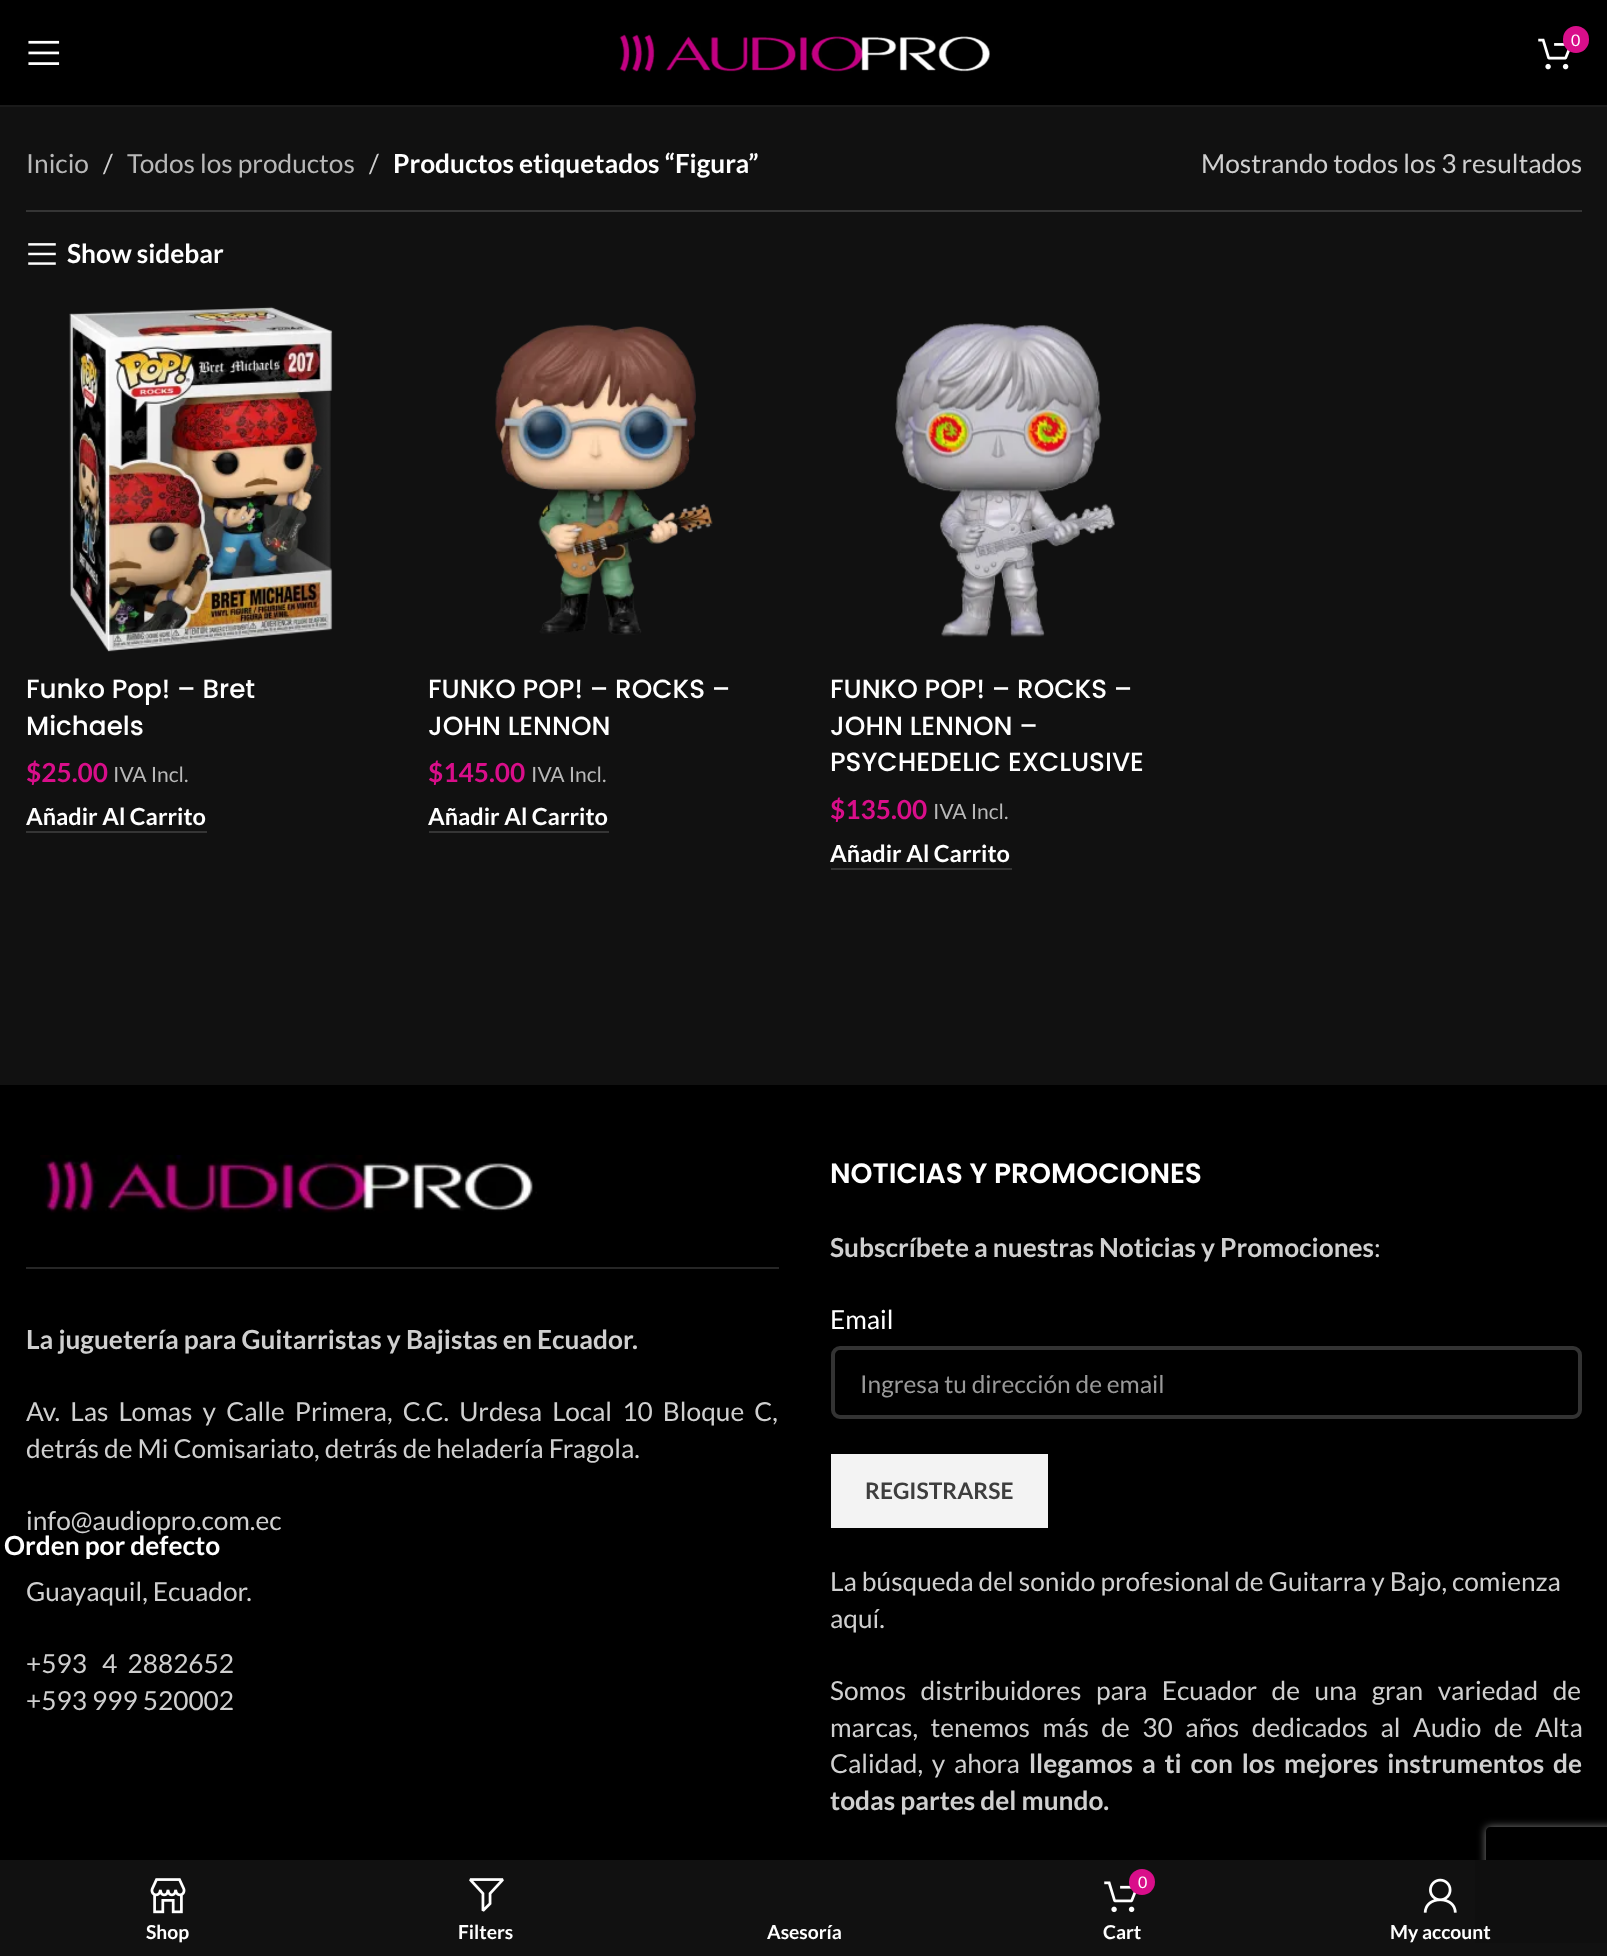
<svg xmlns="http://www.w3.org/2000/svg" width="1607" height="1956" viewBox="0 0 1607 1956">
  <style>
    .t1 { font: 16px Lato; fill: #fff; }
    .t2 { font: 26.25px Lato; fill: #b8b8b8; }
    .t3 { font: 26.25px Lato; fill: #cfcfcf; }
    .t4 { font: bold 26.25px Lato; fill: #fff; }
    .t5 { font: 500 26.25px Poppins; fill: #fff; }
    .t6 { font: bold 26.25px Lato; fill: #d90e8a; }
    .t7 { font: 21px Lato; fill: #b8b8b8; }
    .t8 { font: bold 23.5px Lato; fill: #fff; }
    .t9 { font: bold 26.25px Lato; fill: #cfcfcf; }
    .t10 { font: 600 28px Poppins; fill: #fff; }
    .t11 { font: 26.25px Lato; fill: #fff; }
    .t12 { font: 24.5px Lato; fill: #999; }
    .t13 { font: bold 22.75px Lato; fill: #3e3e3e; }
    .t14 { font: bold 19.25px Lato; fill: #fff; }
  </style>
  <defs>
    <clipPath id="clip1"><rect x="4" y="1528" width="311" height="31"/></clipPath>
    <clipPath id="clip2"><path d="M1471 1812H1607V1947H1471ZM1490 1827H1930C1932 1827 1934 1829 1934 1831V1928C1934 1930 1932 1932 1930 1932H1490C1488 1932 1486 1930 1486 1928V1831C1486 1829 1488 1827 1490 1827Z" clip-rule="evenodd"/></clipPath>
  </defs>
  <rect width="100%" height="100%" fill="#111"/>
  <rect x="0" y="0" width="1607" height="105" fill="#000"/>
  <rect x="0" y="105" width="1607" height="2" fill="#1a1a1a"/>
  <image x="28" y="40" width="32" height="25" href="images/1.png"/>
  <image x="619" y="34" width="371" height="38" href="images/2.png"/>
  <image x="1538" y="38" width="32" height="32" href="images/3.png"/>
  <rect x="1563" y="26" width="26" height="27" rx="13" fill="#d90e8a"/>
  <text x="1571" y="46" class="t1">0</text>
  <rect x="26" y="210" width="1556" height="2" fill="#353535"/>
  <text x="26" y="173" class="t2">Inicio</text>
  <text x="103" y="173" class="t3">/</text>
  <text x="127" y="173" class="t2">Todos los productos</text>
  <text x="369" y="173" class="t3">/</text>
  <text x="393" y="173" class="t4">Productos etiquetados “Figura”</text>
  <text x="1201" y="173" class="t3">Mostrando todos los 3 resultados</text>
  <image x="28" y="243" width="28" height="22" href="images/4.png"/>
  <text x="67" y="263" class="t4">Show sidebar</text>
  <rect x="0" y="1085" width="1607" height="775" fill="#000"/>
  <g clip-path="url(#clip1)">
    <text x="4" y="1555" class="t4">Orden por defecto</text>
  </g>
  <image x="69" y="306" width="264" height="346" href="images/5.png"/>
  <text x="26" y="698" class="t5">Funko Pop! – Bret</text>
  <text x="26" y="735" class="t5">Michaels</text>
  <text x="26" y="782" class="t6">$25.00</text>
  <text x="113" y="782" class="t7">IVA Incl.</text>
  <rect x="26" y="831" width="181" height="2" fill="#353535"/>
  <text x="26" y="825" class="t8">Añadir Al Carrito</text>
  <image x="495" y="324" width="218" height="311" href="images/6.png"/>
  <text x="428" y="698" class="t5">FUNKO POP! – ROCKS –</text>
  <text x="428" y="735" class="t5">JOHN LENNON</text>
  <text x="428" y="782" class="t6">$145.00</text>
  <text x="531" y="782" class="t7">IVA Incl.</text>
  <rect x="429" y="831" width="180" height="2" fill="#353535"/>
  <text x="428" y="825" class="t8">Añadir Al Carrito</text>
  <image x="895" y="323" width="220" height="314" href="images/7.png"/>
  <text x="830" y="698" class="t5">FUNKO POP! – ROCKS –</text>
  <text x="830" y="735" class="t5">JOHN LENNON –</text>
  <text x="830" y="771" class="t5">PSYCHEDELIC EXCLUSIVE</text>
  <text x="830" y="819" class="t6">$135.00</text>
  <text x="933" y="819" class="t7">IVA Incl.</text>
  <rect x="831" y="868" width="181" height="2" fill="#353535"/>
  <text x="830" y="862" class="t8">Añadir Al Carrito</text>
  <rect x="26" y="1267" width="753" height="2" fill="#262626"/>
  <image x="40" y="1155" width="497" height="58" href="images/8.png"/>
  <text x="26" y="1349" class="t9">La juguetería para Guitarristas y Bajistas en Ecuador.</text>
  <text x="26" y="1421" word-spacing="5.1" class="t3">Av. Las Lomas y Calle Primera, C.C. Urdesa Local 10 Bloque C,</text>
  <text x="26" y="1458" class="t3">detrás de Mi Comisariato, detrás de heladería Fragola.</text>
  <text x="26" y="1530" class="t3">info@audiopro.com.ec</text>
  <text x="26" y="1601" class="t3">Guayaquil, Ecuador.</text>
  <text x="26" y="1673" class="t3" xml:space="preserve">+593   4  2882652</text>
  <text x="26" y="1710" class="t3">+593 999 520002</text>
  <text x="830" y="1183" class="t10">NOTICIAS Y PROMOCIONES</text>
  <text x="830" y="1257" class="t9">Subscríbete a nuestras Noticias y Promociones</text>
  <text x="1374" y="1257" class="t3">:</text>
  <text x="830" y="1329" class="t11">Email</text>
  <rect x="833" y="1348" width="747" height="69" rx="7" fill="none" stroke="#333" stroke-width="4"/>
  <text x="860" y="1393" class="t12">Ingresa tu dirección de email</text>
  <rect x="831" y="1454" width="217" height="74" fill="#f3f3f3"/>
  <text x="865" y="1499" class="t13">REGISTRARSE</text>
  <text x="830" y="1591" class="t3">La búsqueda del sonido profesional de Guitarra y Bajo, comienza</text>
  <text x="830" y="1628" class="t3">aquí.</text>
  <text x="830" y="1700" word-spacing="9.5" class="t3">Somos distribuidores para Ecuador de una gran variedad de</text>
  <text x="830" y="1737" word-spacing="7.5" class="t3">marcas, tenemos más de 30 años dedicados al Audio de Alta</text>
  <text x="830" y="1773" word-spacing="3.75" class="t3">Calidad, y ahora</text>
  <text x="1029" y="1773" word-spacing="3.75" class="t9">llegamos a ti con los mejores instrumentos de</text>
  <text x="830" y="1810" class="t9">todas partes del mundo.</text>
  <g clip-path="url(#clip2)">
    <rect x="1486" y="1827" width="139" height="105" rx="4" fill="#808080" filter="blur(4.5px)"/>
  </g>
  <rect x="1475" y="1860" width="132" height="83" fill="#0f0f0f"/>
  <image x="150" y="1878" width="36" height="36" href="images/9.png"/>
  <text x="146" y="1939" class="t14">Shop</text>
  <image x="469" y="1878" width="35" height="34" href="images/10.png"/>
  <text x="458" y="1939" class="t14">Filters</text>
  <text x="767" y="1939" class="t14">Asesoría</text>
  <image x="1104" y="1881" width="33" height="32" href="images/11.png"/>
  <circle cx="1142" cy="1882" r="13" fill="#d90e8a"/>
  <text x="1138" y="1888" class="t1">0</text>
  <text x="1103" y="1939" class="t14">Cart</text>
  <image x="1423" y="1878" width="34" height="35" href="images/12.png"/>
  <text x="1390" y="1939" class="t14">My account</text>
</svg>
